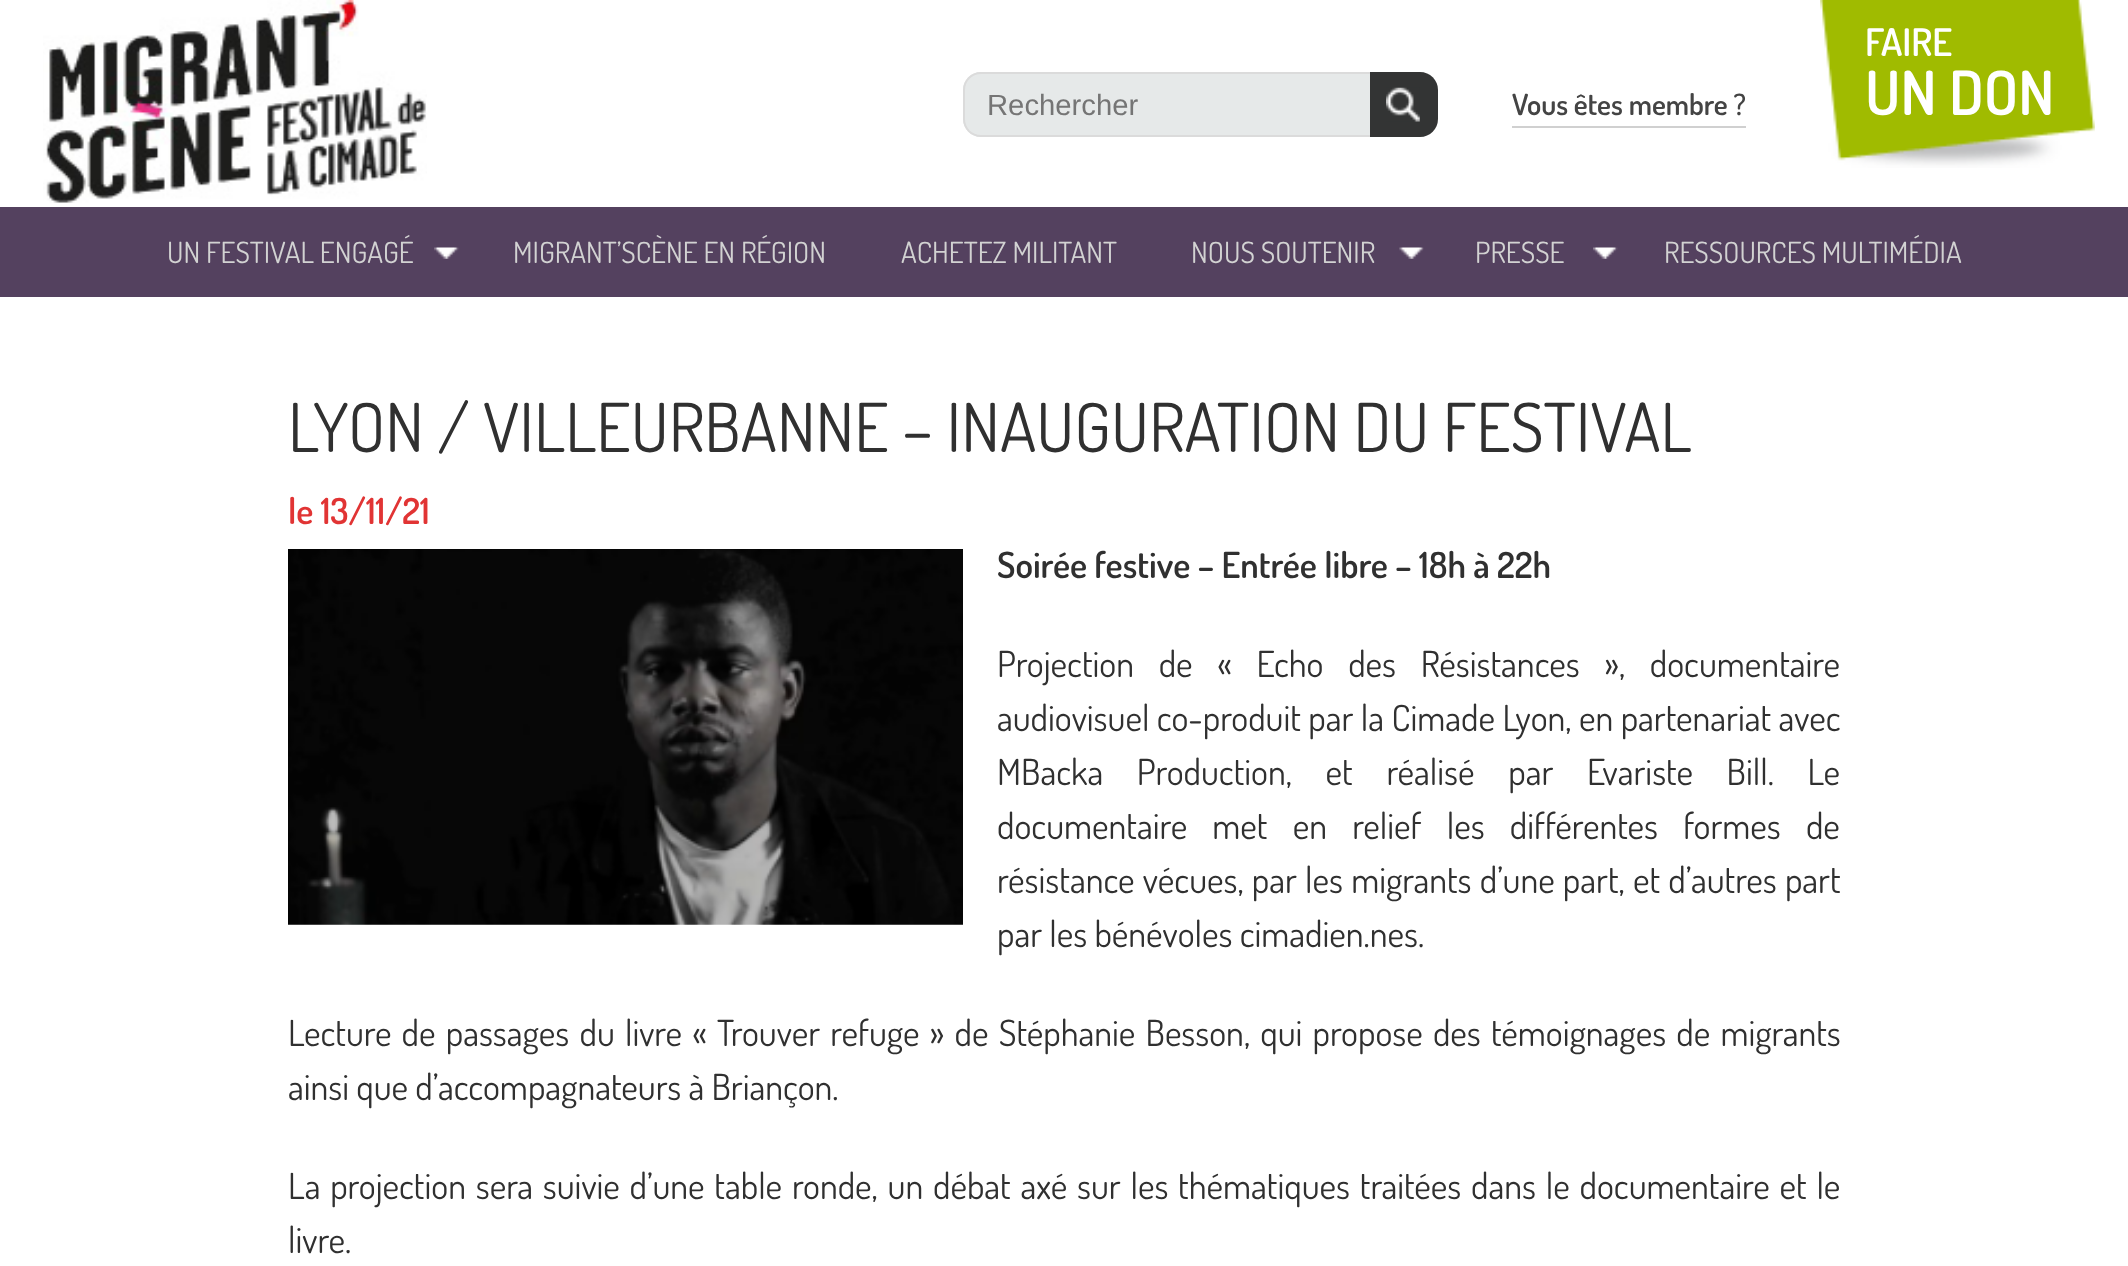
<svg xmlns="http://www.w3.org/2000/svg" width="2128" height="1266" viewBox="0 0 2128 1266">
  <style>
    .t1 { font: 29.25px Liberation Sans; fill: #757575; }
    .t2 { font: 600 29.25px Dosis; fill: #444; }
    .t3 { font: 600 38px Dosis; fill: #fff; }
    .t4 { font: 600 61px Dosis; fill: #fff; }
    .t5 { font: 29.25px Dosis; fill: #d2d2d2; }
    .t6 { font: 67.5px Dosis; fill: #303030; }
    .t7 { font: 600 36px Dosis; fill: #e13434; }
    .t8 { font: 600 36px Dosis; fill: #303030; }
    .t9 { font: 36px Dosis; fill: #303030; }
  </style>
  <rect width="100%" height="100%" fill="#fff"/>
  <image x="43" y="0" width="384" height="203" href="images/1.png"/>
  <path d="M981 72H1370V137H981C971 137 963 129 963 119V90C963 80 971 72 981 72Z" fill="#e6e9e9"/>
  <path d="M981 72H1370V137H981C971 137 963 129 963 119V90C963 80 971 72 981 72ZM981 74H1370V135H981C972 135 965 128 965 119V90C965 81 972 74 981 74Z" fill="#dbdbdb" fill-rule="evenodd"/>
  <text x="987" y="115" class="t1">Rechercher</text>
  <path d="M1370 72H1420C1430 72 1438 80 1438 90V119C1438 129 1430 137 1420 137H1370Z" fill="#333434"/>
  <image x="1386" y="87" width="34" height="35" href="images/2.png"/>
  <rect x="1512" y="126" width="234" height="2" fill="#d0d0d0"/>
  <text x="1512" y="115" class="t2">Vous êtes membre ?</text>
  <image x="1820" y="0" width="275" height="168" href="images/3.png"/>
  <text x="1865" y="56" class="t3">FAIRE</text>
  <text x="1865" y="115" class="t4">UN DON</text>
  <rect x="0" y="207" width="2128" height="90" fill="#54415f"/>
  <image x="434" y="247" width="25" height="12" href="images/4.png"/>
  <text x="167" y="263" class="t5">UN FESTIVAL ENGAGÉ</text>
  <text x="513" y="263" class="t5">MIGRANT’SCÈNE EN RÉGION</text>
  <text x="901" y="263" class="t5">ACHETEZ MILITANT</text>
  <image x="1399" y="247" width="25" height="12" href="images/5.png"/>
  <text x="1191" y="263" class="t5">NOUS SOUTENIR</text>
  <image x="1593" y="247" width="25" height="12" href="images/6.png"/>
  <text x="1475" y="263" class="t5">PRESSE</text>
  <text x="1664" y="263" class="t5">RESSOURCES MULTIMÉDIA</text>
  <text x="288" y="452" class="t6">LYON / VILLEURBANNE – INAUGURATION DU FESTIVAL</text>
  <text x="288" y="524" class="t7">le 13/11/21</text>
  <image x="288" y="549" width="675" height="376" href="images/7.png"/>
  <text x="997" y="578" class="t8">Soirée festive – Entrée libre – 18h à 22h</text>
  <text x="997" y="677" word-spacing="17.5" class="t9">Projection de « Echo des Résistances », documentaire</text>
  <text x="997" y="731" word-spacing="0.25" class="t9">audiovisuel co-produit par la Cimade Lyon, en partenariat avec</text>
  <text x="997" y="785" word-spacing="26.5" class="t9">MBacka Production, et réalisé par Evariste Bill. Le</text>
  <text x="997" y="839" word-spacing="18" class="t9">documentaire met en relief les différentes formes de</text>
  <text x="997" y="893" word-spacing="1" class="t9">résistance vécues, par les migrants d’une part, et d’autres part</text>
  <text x="997" y="947" class="t9">par les bénévoles cimadien.nes.</text>
  <text x="288" y="1046" word-spacing="3" class="t9">Lecture de passages du livre « Trouver refuge » de Stéphanie Besson, qui propose des témoignages de migrants</text>
  <text x="288" y="1100" class="t9">ainsi que d’accompagnateurs à Briançon.</text>
  <text x="288" y="1199" word-spacing="2.6" class="t9">La projection sera suivie d’une table ronde, un débat axé sur les thématiques traitées dans le documentaire et le</text>
  <text x="288" y="1253" class="t9">livre.</text>
</svg>
